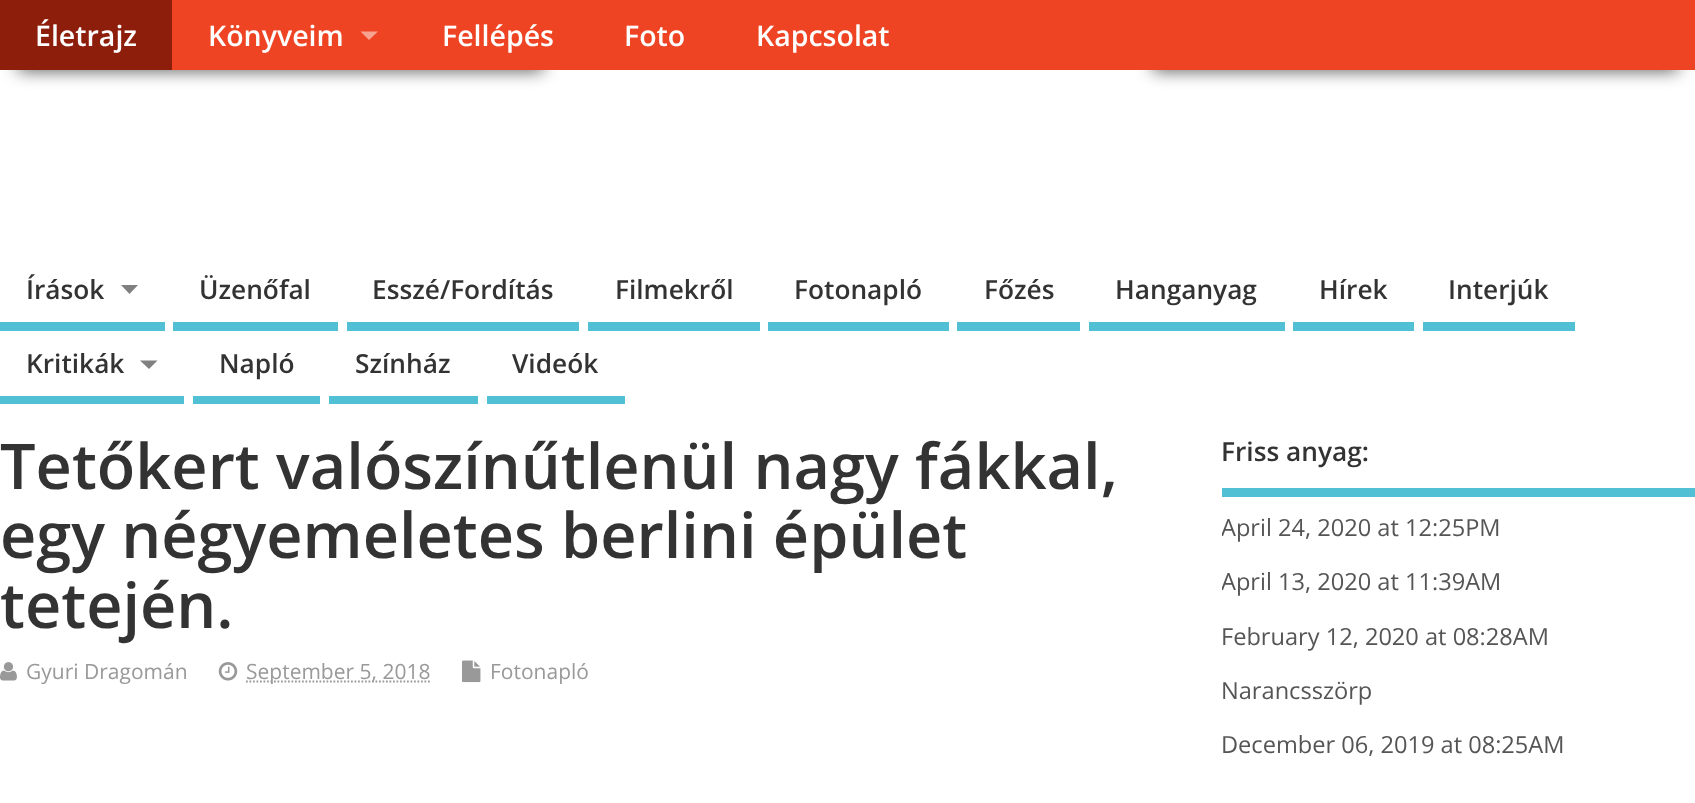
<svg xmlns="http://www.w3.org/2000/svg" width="1695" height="803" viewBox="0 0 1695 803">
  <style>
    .t1 { font: 600 28.5px Open Sans; fill: #fff; }
    .t2 { font: 600 26.25px Open Sans; fill: #333; }
    .t3 { font: 600 63px Open Sans; fill: #333; }
    .t4 { font: 21px Open Sans; fill: #999; }
    .t5 { font: 23.6px Open Sans; fill: #555; }
  </style>
  <defs>
    <clipPath id="clip1"><rect x="1222" y="509" width="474" height="273"/></clipPath>
  </defs>
  <rect width="100%" height="100%" fill="#fff"/>
  <rect x="18" y="56" width="525" height="14" fill="#000000bf" filter="blur(8.5px)"/>
  <rect x="1153" y="56" width="525" height="14" fill="#000000bf" filter="blur(8.5px)"/>
  <rect x="172" y="0" width="1523" height="70" fill="#ef4423"/>
  <rect x="0" y="0" width="172" height="70" fill="#8e1e0c"/>
  <text x="35" y="46" class="t1">Életrajz</text>
  <text x="208" y="46" class="t1">Könyveim</text>
  <path d="M360.5 31.5H378L369 40Z" fill="#f7a291"/>
  <text x="442" y="46" class="t1">Fellépés</text>
  <text x="624" y="46" class="t1">Foto</text>
  <text x="756" y="46" class="t1">Kapcsolat</text>
  <rect x="0" y="322" width="165" height="9" fill="#52c0d4"/>
  <text x="26" y="299" class="t2">Írások</text>
  <path d="M121 285H138L129.5 294Z" fill="#808080"/>
  <rect x="173" y="322" width="165" height="9" fill="#52c0d4"/>
  <text x="199" y="299" class="t2">Üzenőfal</text>
  <rect x="347" y="322" width="232" height="9" fill="#52c0d4"/>
  <text x="372" y="299" class="t2">Esszé/Fordítás</text>
  <rect x="588" y="322" width="172" height="9" fill="#52c0d4"/>
  <text x="615" y="299" class="t2">Filmekről</text>
  <rect x="768" y="322" width="181" height="9" fill="#52c0d4"/>
  <text x="794" y="299" class="t2">Fotonapló</text>
  <rect x="957" y="322" width="123" height="9" fill="#52c0d4"/>
  <text x="984" y="299" class="t2">Főzés</text>
  <rect x="1089" y="322" width="196" height="9" fill="#52c0d4"/>
  <text x="1115" y="299" class="t2">Hanganyag</text>
  <rect x="1293" y="322" width="121" height="9" fill="#52c0d4"/>
  <text x="1319" y="299" class="t2">Hírek</text>
  <rect x="1423" y="322" width="152" height="9" fill="#52c0d4"/>
  <text x="1448" y="299" class="t2">Interjúk</text>
  <rect x="0" y="396" width="184" height="8" fill="#52c0d4"/>
  <text x="26" y="373" class="t2">Kritikák</text>
  <path d="M140 360.5H157.5L149 369Z" fill="#808080"/>
  <rect x="193" y="396" width="127" height="8" fill="#52c0d4"/>
  <text x="219" y="373" class="t2">Napló</text>
  <rect x="329" y="396" width="149" height="8" fill="#52c0d4"/>
  <text x="355" y="373" class="t2">Színház</text>
  <rect x="487" y="396" width="138" height="8" fill="#52c0d4"/>
  <text x="512" y="373" class="t2">Videók</text>
  <text x="0" y="489" class="t3">Tetőkert valószínűtlenül nagy fákkal,</text>
  <text x="0" y="558" class="t3">egy négyemeletes berlini épület</text>
  <text x="0" y="628" class="t3">tetején.</text>
  <image x="0" y="662" width="17" height="19" href="images/1.png"/>
  <text x="26" y="679" class="t4">Gyuri Dragomán</text>
  <image x="218" y="662" width="20" height="19" href="images/2.png"/>
  <path d="M246 681.5H430.5" fill="none" stroke="#999" stroke-width="1.8" stroke-dasharray="1.75 1.75"/>
  <text x="246" y="679" class="t4">September 5, 2018</text>
  <image x="462" y="660" width="19" height="23" href="images/3.png"/>
  <text x="490" y="679" class="t4">Fotonapló</text>
  <rect x="1222" y="488" width="473" height="9" fill="#52c0d4"/>
  <text x="1221" y="461" class="t2">Friss anyag:</text>
  <g clip-path="url(#clip1)">
    <text x="1221" y="536" class="t5">April 24, 2020 at 12:25PM</text>
    <text x="1221" y="590" class="t5">April 13, 2020 at 11:39AM</text>
  </g>
  <text x="1221" y="645" class="t5">February 12, 2020 at 08:28AM</text>
  <text x="1221" y="699" class="t5">Narancsszörp</text>
  <text x="1221" y="753" class="t5">December 06, 2019 at 08:25AM</text>
</svg>
